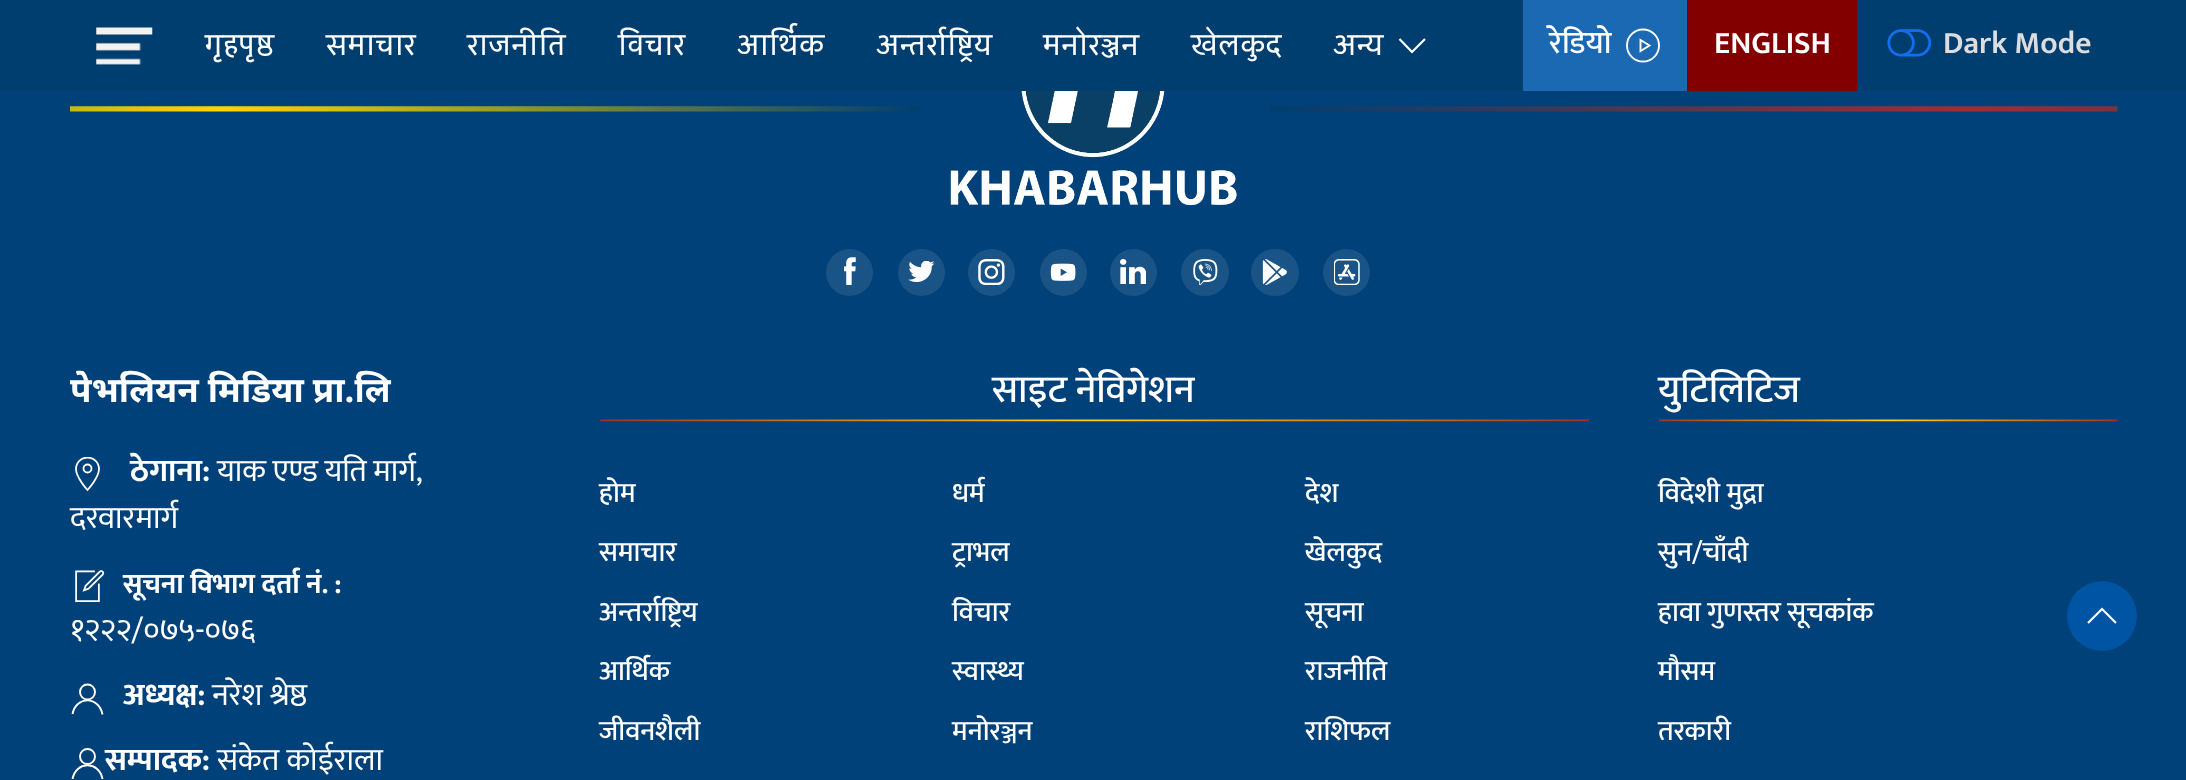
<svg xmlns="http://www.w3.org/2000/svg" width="2186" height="780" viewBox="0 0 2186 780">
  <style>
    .t1 { font: 30px Sarala; fill: #fff; }
    .t2 { font: 500 31.5px Mukta; fill: #fff; }
    .t3 { font: 600 31.5px Mukta; fill: #fff; }
    .t4 { font: 600 31.5px Mukta; fill: #ddd; }
    .t5 { font: bold 35px Noto Sans; fill: #fff; }
    .t6 { font: bold 31.5px Mukta; fill: #fff; }
    .t7 { font: 31.5px Mukta; fill: #fff; }
    .t8 { font: bold 28px Mukta; fill: #fff; }
    .t9 { font: 500 38.5px Mukta; fill: #fff; }
    .t10 { font: 500 28px Mukta; fill: #fff; }
  </style>
  <defs>
    <clipPath id="clip1"><rect x="70" y="457" width="35" height="35"/></clipPath>
  </defs>
  <rect width="100%" height="100%" fill="#004179"/>
  <rect x="0" y="0" width="2186" height="91" fill="#003e6f"/>
  <image x="96" y="27" width="57" height="38" href="images/1.png"/>
  <text x="205" y="55" class="t1">गृहपृष्ठ</text>
  <text x="326" y="55" class="t1">समाचार</text>
  <text x="467" y="55" class="t1">राजनीति</text>
  <text x="618" y="55" class="t1">विचार</text>
  <text x="737" y="55" class="t1">आर्थिक</text>
  <text x="876" y="55" class="t1">अन्तर्राष्ट्रिय</text>
  <text x="1043" y="55" class="t1">मनोरञ्जन</text>
  <text x="1191" y="55" class="t1">खेलकुद</text>
  <text x="1333" y="55" class="t1">अन्य</text>
  <path d="M1425 39L1412 52L1399.5 39" fill="none" stroke="#fff" stroke-width="2.2"/>
  <rect x="1523" y="0" width="164" height="91" fill="#1b68b3"/>
  <text x="1549" y="53" class="t2">रेडियो</text>
  <path d="M1640.5 40L1649.5 45.5L1640.5 51Z" fill="none" stroke="#fff" stroke-width="1.9"/>
  <circle cx="1643" cy="45.5" r="16" fill="none" stroke="#fff" stroke-width="1.9"/>
  <rect x="1687" y="0" width="170" height="91" fill="#820000"/>
  <text x="1714" y="53" class="t3">ENGLISH</text>
  <image x="1887" y="29" width="45" height="28" href="images/2.png"/>
  <text x="1943" y="53" class="t4">Dark Mode</text>
  <image x="70" y="106" width="849" height="6" href="images/3.png"/>
  <image x="950" y="91" width="287" height="115" href="images/4.png"/>
  <image x="1269" y="106" width="849" height="6" href="images/5.png"/>
  <circle cx="849.5" cy="272.5" r="23.5" fill="#1a5486"/>
  <image x="844" y="257" width="12" height="28" href="images/6.png"/>
  <circle cx="921.5" cy="272.5" r="23.5" fill="#1a5486"/>
  <image x="908" y="261" width="27" height="21" href="images/7.png"/>
  <circle cx="991.5" cy="272.5" r="23.5" fill="#1a5486"/>
  <image x="978" y="259" width="27" height="26" href="images/8.png"/>
  <circle cx="1063.5" cy="272.5" r="23.5" fill="#1a5486"/>
  <image x="1050" y="263" width="26" height="18" href="images/9.png"/>
  <circle cx="1133.5" cy="272.5" r="23.5" fill="#1a5486"/>
  <image x="1120" y="259" width="26" height="25" href="images/10.png"/>
  <rect x="1181" y="249" width="48" height="47" rx="23.5" fill="#1a5486"/>
  <image x="1193" y="259" width="25" height="26" href="images/11.png"/>
  <rect x="1251" y="249" width="48" height="47" rx="23.5" fill="#1a5486"/>
  <image x="1262" y="259" width="25" height="26" href="images/12.png"/>
  <circle cx="1346.5" cy="272.5" r="23.5" fill="#1a5486"/>
  <image x="1334" y="259" width="26" height="26" href="images/13.png"/>
  <text x="70" y="402" class="t5">पेभलियन मिडिया प्रा.लि</text>
  <g clip-path="url(#clip1)">
    <path d="M87.5 457.5C81 457.5 76 462.5 76 469C76 477.5 87.5 490 87.5 490C87.5 490 99 477.5 99 469C99 462.5 94 457.5 87.5 457.5Z" fill="none" stroke="#fff" stroke-width="1.8"/>
  </g>
  <circle cx="87.5" cy="468.5" r="4" fill="none" stroke="#fff" stroke-width="1.8"/>
  <text x="130" y="481" class="t6">ठेगाना:</text>
  <text x="217" y="481" word-spacing="-0.5" class="t7">याक एण्ड यति मार्ग,</text>
  <text x="70" y="528" class="t7">दरवारमार्ग</text>
  <image x="75" y="570" width="30" height="33" href="images/14.png"/>
  <text x="123" y="593" class="t8">सूचना विभाग दर्ता नं. :</text>
  <text x="70" y="640" class="t7">१२२२/०७५-०७६</text>
  <circle cx="87.5" cy="692" r="7.5" fill="none" stroke="#fff" stroke-width="1.9"/>
  <path d="M72.5 714C76 695.5 99 696 102.5 714.5" fill="none" stroke="#fff" stroke-width="1.9"/>
  <text x="123" y="705" class="t6">अध्यक्ष:</text>
  <text x="212" y="705" class="t7">नरेश श्रेष्ठ</text>
  <circle cx="87.5" cy="756.5" r="7.5" fill="none" stroke="#fff" stroke-width="1.9"/>
  <path d="M72.5 779C76 760.5 99 761 102.5 779" fill="none" stroke="#fff" stroke-width="1.9"/>
  <text x="105" y="770" class="t6">सम्पादक:</text>
  <text x="217" y="770" class="t7">संकेत कोईराला</text>
  <image x="600" y="419" width="989" height="3" href="images/15.png"/>
  <text x="992" y="402" class="t9">साइट नेविगेशन</text>
  <text x="599" y="502" class="t10">होम</text>
  <text x="599" y="561" class="t10">समाचार</text>
  <text x="599" y="621" class="t10">अन्तर्राष्ट्रिय</text>
  <text x="599" y="680" class="t10">आर्थिक</text>
  <text x="599" y="740" class="t10">जीवनशैली</text>
  <text x="952" y="502" class="t10">धर्म</text>
  <text x="952" y="561" class="t10">ट्राभल</text>
  <text x="952" y="621" class="t10">विचार</text>
  <text x="952" y="680" class="t10">स्वास्थ्य</text>
  <text x="952" y="740" class="t10">मनोरञ्जन</text>
  <text x="1305" y="502" class="t10">देश</text>
  <text x="1305" y="561" class="t10">खेलकुद</text>
  <text x="1305" y="621" class="t10">सूचना</text>
  <text x="1305" y="680" class="t10">राजनीति</text>
  <text x="1305" y="740" class="t10">राशिफल</text>
  <image x="1659" y="419" width="459" height="3" href="images/16.png"/>
  <text x="1658" y="402" class="t9">युटिलिटिज</text>
  <text x="1658" y="502" class="t10">विदेशी मुद्रा</text>
  <text x="1658" y="561" class="t10">सुन/चाँदी</text>
  <text x="1658" y="621" class="t10">हावा गुणस्तर सूचकांक</text>
  <text x="1658" y="680" class="t10">मौसम</text>
  <text x="1658" y="740" class="t10">तरकारी</text>
  <circle cx="2102" cy="616" r="35" fill="#0054a4"/>
  <path d="M2088 623L2102 609L2116 623" fill="none" stroke="#fff" stroke-width="2.1"/>
</svg>
